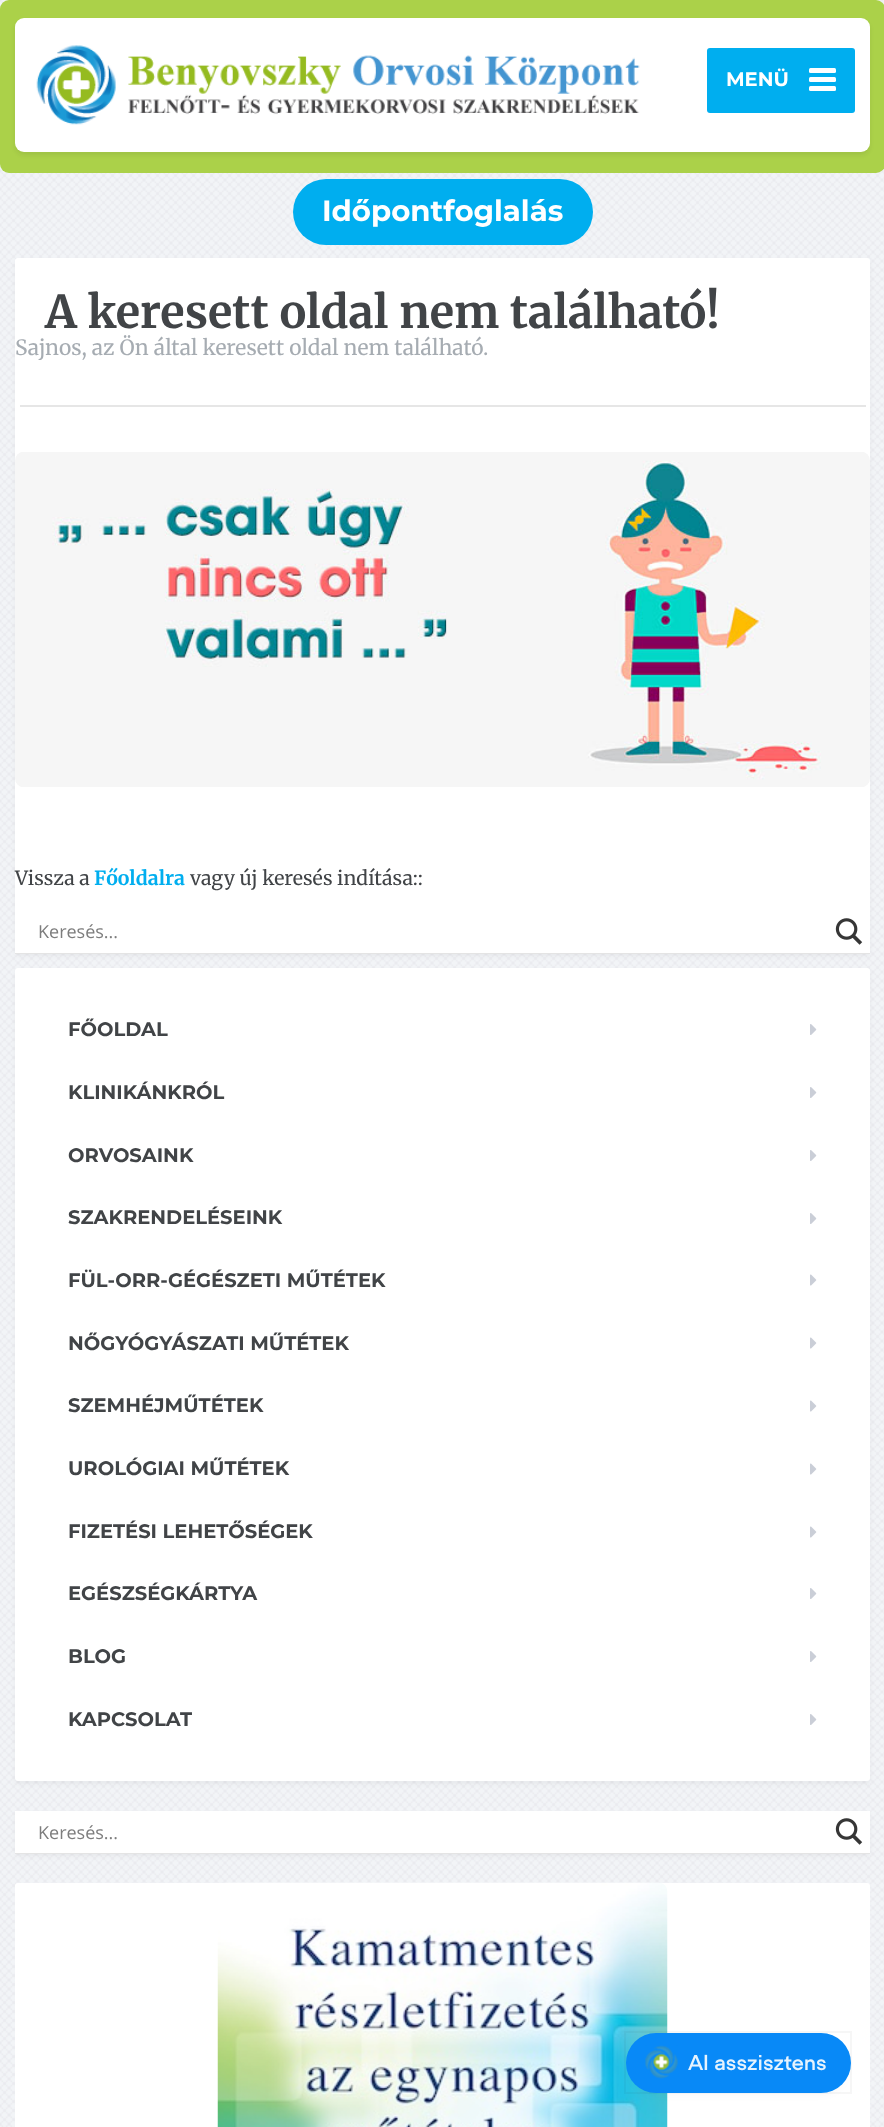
<svg xmlns="http://www.w3.org/2000/svg" width="884" height="2127" viewBox="0 0 884 2127">
  <style>
    .t1 { font: bold 19.5px Montserrat; fill: #fff; }
    .t2 { font: bold 29.25px Montserrat; fill: #fff; }
    .t3 { font: bold 45px Merriweather; fill: #414447; }
    .t4 { font: 21px Merriweather; fill: #a6acb2; }
    .t5 { font: 19.5px Merriweather; fill: #414447; }
    .t6 { font: bold 19.5px Merriweather; fill: #00aeef; }
    .t7 { font: 18px Open Sans; fill: #7d7d7d; }
    .t8 { font: bold 19.5px Montserrat; fill: #414447; }
    .t9 { font: 600 21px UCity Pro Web; fill: #e6f3fe; }
  </style>
  <rect width="100%" height="100%" fill="#f2f4f7"/>
  <image x="0" y="0" width="884" height="2127" href="images/1.png"/>
  <rect x="0" y="0" width="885" height="173" rx="9" fill="#abd149"/>
  <rect x="15" y="21" width="855" height="134" rx="9" fill="#1f1f1f14" filter="blur(2px)"/>
  <rect x="15" y="18" width="855" height="134" rx="9" fill="#fff"/>
  <image x="36" y="45" width="604" height="80" href="images/2.png"/>
  <rect x="707" y="48" width="148" height="65" rx="3" fill="#00aeef"/>
  <text x="726" y="86" class="t1">MENÜ</text>
  <rect x="809" y="68" width="27" height="5" rx="1.5" fill="#fff"/>
  <rect x="809" y="77" width="27" height="5" rx="1.5" fill="#fff"/>
  <rect x="809" y="86" width="27" height="5" rx="1.5" fill="#fff"/>
  <rect x="293" y="179" width="300" height="66" rx="33" fill="#00aeef"/>
  <text x="322" y="221" class="t2">Időpontfoglalás</text>
  <rect x="15" y="261" width="855" height="695" rx="3" fill="#1f1f1f0d" filter="blur(2px)"/>
  <rect x="15" y="258" width="855" height="695" rx="3" fill="#fff"/>
  <rect x="20" y="405" width="846" height="2" fill="#e6e6e6"/>
  <text x="45" y="328" class="t3">A keresett oldal nem található!</text>
  <text x="15" y="355" class="t4">Sajnos, az Ön által keresett oldal nem található.</text>
  <image x="15" y="452" width="855" height="335" href="images/3.png"/>
  <text x="15" y="885" class="t5">Vissza a</text>
  <text x="94" y="885" class="t6">Főoldalra</text>
  <text x="190" y="885" class="t5">vagy új keresés indítása::</text>
  <rect x="15" y="953" width="855" height="1" fill="#e4e4e4"/>
  <rect x="15" y="950" width="855" height="3" fill="#fff"/>
  <text x="38" y="938" class="t7">Keresés...</text>
  <image x="835" y="918" width="28" height="27" href="images/4.png"/>
  <rect x="15" y="971" width="855" height="813" rx="3" fill="#1f1f1f0d" filter="blur(2px)"/>
  <rect x="15" y="968" width="855" height="813" rx="3" fill="#fff"/>
  <text x="68" y="1036" class="t8">FŐOLDAL</text>
  <image x="810" y="1024" width="7" height="11" href="images/5.png"/>
  <text x="68" y="1099" class="t8">KLINIKÁNKRÓL</text>
  <image x="810" y="1087" width="7" height="11" href="images/5.png"/>
  <text x="68" y="1162" class="t8">ORVOSAINK</text>
  <image x="810" y="1150" width="7" height="11" href="images/5.png"/>
  <text x="68" y="1224" class="t8">SZAKRENDELÉSEINK</text>
  <image x="810" y="1213" width="7" height="11" href="images/5.png"/>
  <text x="68" y="1287" class="t8">FÜL-ORR-GÉGÉSZETI MŰTÉTEK</text>
  <image x="810" y="1274" width="7" height="12" href="images/6.png"/>
  <text x="68" y="1350" class="t8">NŐGYÓGYÁSZATI MŰTÉTEK</text>
  <image x="810" y="1337" width="7" height="12" href="images/6.png"/>
  <text x="68" y="1412" class="t8">SZEMHÉJMŰTÉTEK</text>
  <image x="810" y="1400" width="7" height="12" href="images/6.png"/>
  <text x="68" y="1475" class="t8">UROLÓGIAI MŰTÉTEK</text>
  <image x="810" y="1463" width="7" height="12" href="images/6.png"/>
  <text x="68" y="1538" class="t8">FIZETÉSI LEHETŐSÉGEK</text>
  <image x="810" y="1526" width="7" height="12" href="images/6.png"/>
  <text x="68" y="1600" class="t8">EGÉSZSÉGKÁRTYA</text>
  <image x="810" y="1588" width="7" height="11" href="images/5.png"/>
  <text x="68" y="1663" class="t8">BLOG</text>
  <image x="810" y="1651" width="7" height="11" href="images/5.png"/>
  <text x="68" y="1726" class="t8">KAPCSOLAT</text>
  <image x="810" y="1714" width="7" height="11" href="images/5.png"/>
  <rect x="15" y="1814" width="855" height="42" rx="3" fill="#1f1f1f0d" filter="blur(2px)"/>
  <rect x="15" y="1853" width="855" height="1" fill="#e4e4e4"/>
  <rect x="15" y="1811" width="855" height="42" fill="#fff"/>
  <text x="38" y="1839" class="t7">Keresés...</text>
  <image x="835" y="1818" width="28" height="27" href="images/4.png"/>
  <rect x="15" y="1883" width="855" height="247" rx="3" fill="#fff"/>
  <image x="217" y="1882" width="451" height="245" href="images/7.png"/>
  <rect x="635" y="2048" width="207" height="42" rx="21" fill="#161a1e14" filter="blur(6px)"/>
  <rect x="625" y="2032" width="226" height="61" fill="none" stroke="#161a1e0a" stroke-width="2"/>
  <rect x="626" y="2033" width="225" height="60" rx="30" fill="#0889f7"/>
  <image x="645" y="2045" width="33" height="34" href="images/8.png"/>
  <text x="688" y="2070" class="t9">AI asszisztens</text>
</svg>
